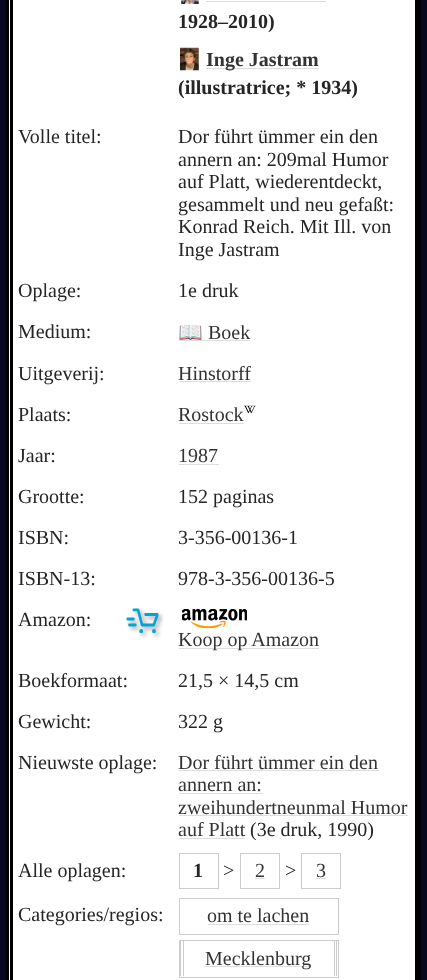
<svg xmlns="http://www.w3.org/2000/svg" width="427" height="980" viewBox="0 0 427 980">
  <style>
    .t1 { font: bold 20px Liberation Serif; fill: #252525; }
    .t2 { font: bold 20px Liberation Serif; fill: #333; }
    .t3 { font: 20px Liberation Serif; fill: #252525; }
    .t4 { font: 20px Noto Color Emoji; fill: #333; }
    .t5 { font: 20px Liberation Serif; fill: #333; }
  </style>
  <rect width="100%" height="100%" fill="#080820"/>
  <rect x="9" y="0" width="406" height="980" fill="#fff"/>
  <rect x="7.5" y="-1.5" width="412" height="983" fill="none" stroke="#000" stroke-width="3"/>
  <rect x="11.5" y="-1.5" width="405" height="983" fill="none" stroke="#000" stroke-width="3"/>
  <image x="181" y="0" width="18" height="4" href="images/1.png"/>
  <rect x="206" y="1" width="120" height="1" fill="#ddd"/>
  <text x="178" y="28" class="t1">1928–2010)</text>
  <image x="180" y="47" width="19" height="24" href="images/2.png"/>
  <rect x="206" y="68" width="113" height="1" fill="#ddd"/>
  <text x="206" y="66" class="t2">Inge Jastram</text>
  <text x="178" y="94" class="t1">(illustratrice; * 1934)</text>
  <text x="18" y="143" class="t3">Volle titel:</text>
  <text x="178" y="143" class="t3">Dor führt ümmer ein den</text>
  <text x="178" y="166" class="t3">annern an: 209mal Humor</text>
  <text x="178" y="188" class="t3">auf Platt, wiederentdeckt,</text>
  <text x="178" y="211" class="t3">gesammelt und neu gefaßt:</text>
  <text x="178" y="233" class="t3">Konrad Reich. Mit Ill. von</text>
  <text x="178" y="256" class="t3">Inge Jastram</text>
  <text x="18" y="297" class="t3">Oplage:</text>
  <text x="178" y="297" class="t3">1e druk</text>
  <text x="18" y="338" class="t3">Medium:</text>
  <rect x="179" y="340" width="71" height="1" fill="#ddd"/>
  <text x="178" y="339" class="t4">📖</text>
  <text x="208" y="339" class="t5">Boek</text>
  <text x="18" y="380" class="t3">Uitgeverij:</text>
  <text x="178" y="380" class="t5">Hinstorff</text>
  <rect x="179" y="381" width="72" height="1" fill="#ddd"/>
  <text x="18" y="421" class="t3">Plaats:</text>
  <text x="178" y="421" class="t5">Rostock</text>
  <rect x="179" y="423" width="65" height="1" fill="#ddd"/>
  <image x="244" y="405" width="12" height="9" href="images/3.png"/>
  <text x="18" y="462" class="t3">Jaar:</text>
  <text x="178" y="462" class="t5">1987</text>
  <rect x="179" y="464" width="40" height="1" fill="#ddd"/>
  <text x="18" y="503" class="t3">Grootte:</text>
  <text x="178" y="503" class="t3">152 paginas</text>
  <text x="18" y="544" class="t3">ISBN:</text>
  <text x="178" y="544" class="t3">3-356-00136-1</text>
  <text x="18" y="585" class="t3">ISBN-13:</text>
  <text x="178" y="585" class="t3">978-3-356-00136-5</text>
  <text x="18" y="626" class="t3">Amazon:</text>
  <image x="126" y="608" width="38" height="30" href="images/4.png"/>
  <image x="182" y="609" width="65" height="19" href="images/5.png"/>
  <rect x="180.5" y="607.5" width="68" height="22" rx="3.5" fill="none" stroke="#fff" stroke-width="3"/>
  <rect x="179" y="648" width="140" height="1" fill="#ddd"/>
  <text x="178" y="646" class="t5">Koop op Amazon</text>
  <text x="18" y="687" class="t3">Boekformaat:</text>
  <text x="178" y="687" class="t3">21,5 × 14,5 cm</text>
  <text x="18" y="728" class="t3">Gewicht:</text>
  <text x="178" y="728" class="t3">322 g</text>
  <text x="18" y="769" class="t3">Nieuwste oplage:</text>
  <text x="178" y="769" class="t5">Dor führt ümmer ein den</text>
  <rect x="179" y="770" width="200" height="1" fill="#ddd"/>
  <text x="178" y="791" class="t5">annern an:</text>
  <rect x="179" y="793" width="84" height="1" fill="#ddd"/>
  <text x="178" y="814" class="t5">zweihundertneunmal Humor</text>
  <rect x="179" y="815" width="229" height="1" fill="#ddd"/>
  <text x="178" y="836" class="t5">auf Platt</text>
  <rect x="179" y="838" width="66" height="1" fill="#ddd"/>
  <text x="250" y="836" class="t3">(3e druk, 1990)</text>
  <text x="18" y="877" class="t3">Alle oplagen:</text>
  <rect x="179.5" y="853.5" width="39" height="35" fill="none" stroke="#ccc"/>
  <text x="193" y="877" class="t1">1</text>
  <text x="223" y="877" class="t3">&gt;</text>
  <rect x="240.5" y="853.5" width="39" height="35" fill="none" stroke="#ccc"/>
  <text x="255" y="877" class="t5">2</text>
  <rect x="255" y="878" width="10" height="1" fill="#ddd"/>
  <text x="285" y="877" class="t3">&gt;</text>
  <rect x="301.5" y="853.5" width="39" height="35" fill="none" stroke="#ccc"/>
  <text x="316" y="877" class="t5">3</text>
  <rect x="316" y="878" width="10" height="1" fill="#ddd"/>
  <text x="18" y="921" class="t3">Categories/regios:</text>
  <rect x="179.5" y="898.5" width="159" height="36" fill="none" stroke="#ccc"/>
  <text x="207" y="922" class="t5">om te lachen</text>
  <rect x="208" y="924" width="101" height="1" fill="#ddd"/>
  <rect x="179.5" y="940.5" width="159" height="37" fill="none" stroke="#ccc"/>
  <rect x="334" y="941" width="1" height="35" fill="#ccc"/>
  <rect x="336" y="941" width="1" height="35" fill="#ccc"/>
  <rect x="180" y="941" width="1" height="35" fill="#ccc"/>
  <rect x="183" y="941" width="1" height="35" fill="#ccc"/>
  <rect x="205" y="966" width="106" height="1" fill="#ddd"/>
  <text x="205" y="965" class="t5">Mecklenburg</text>
</svg>
